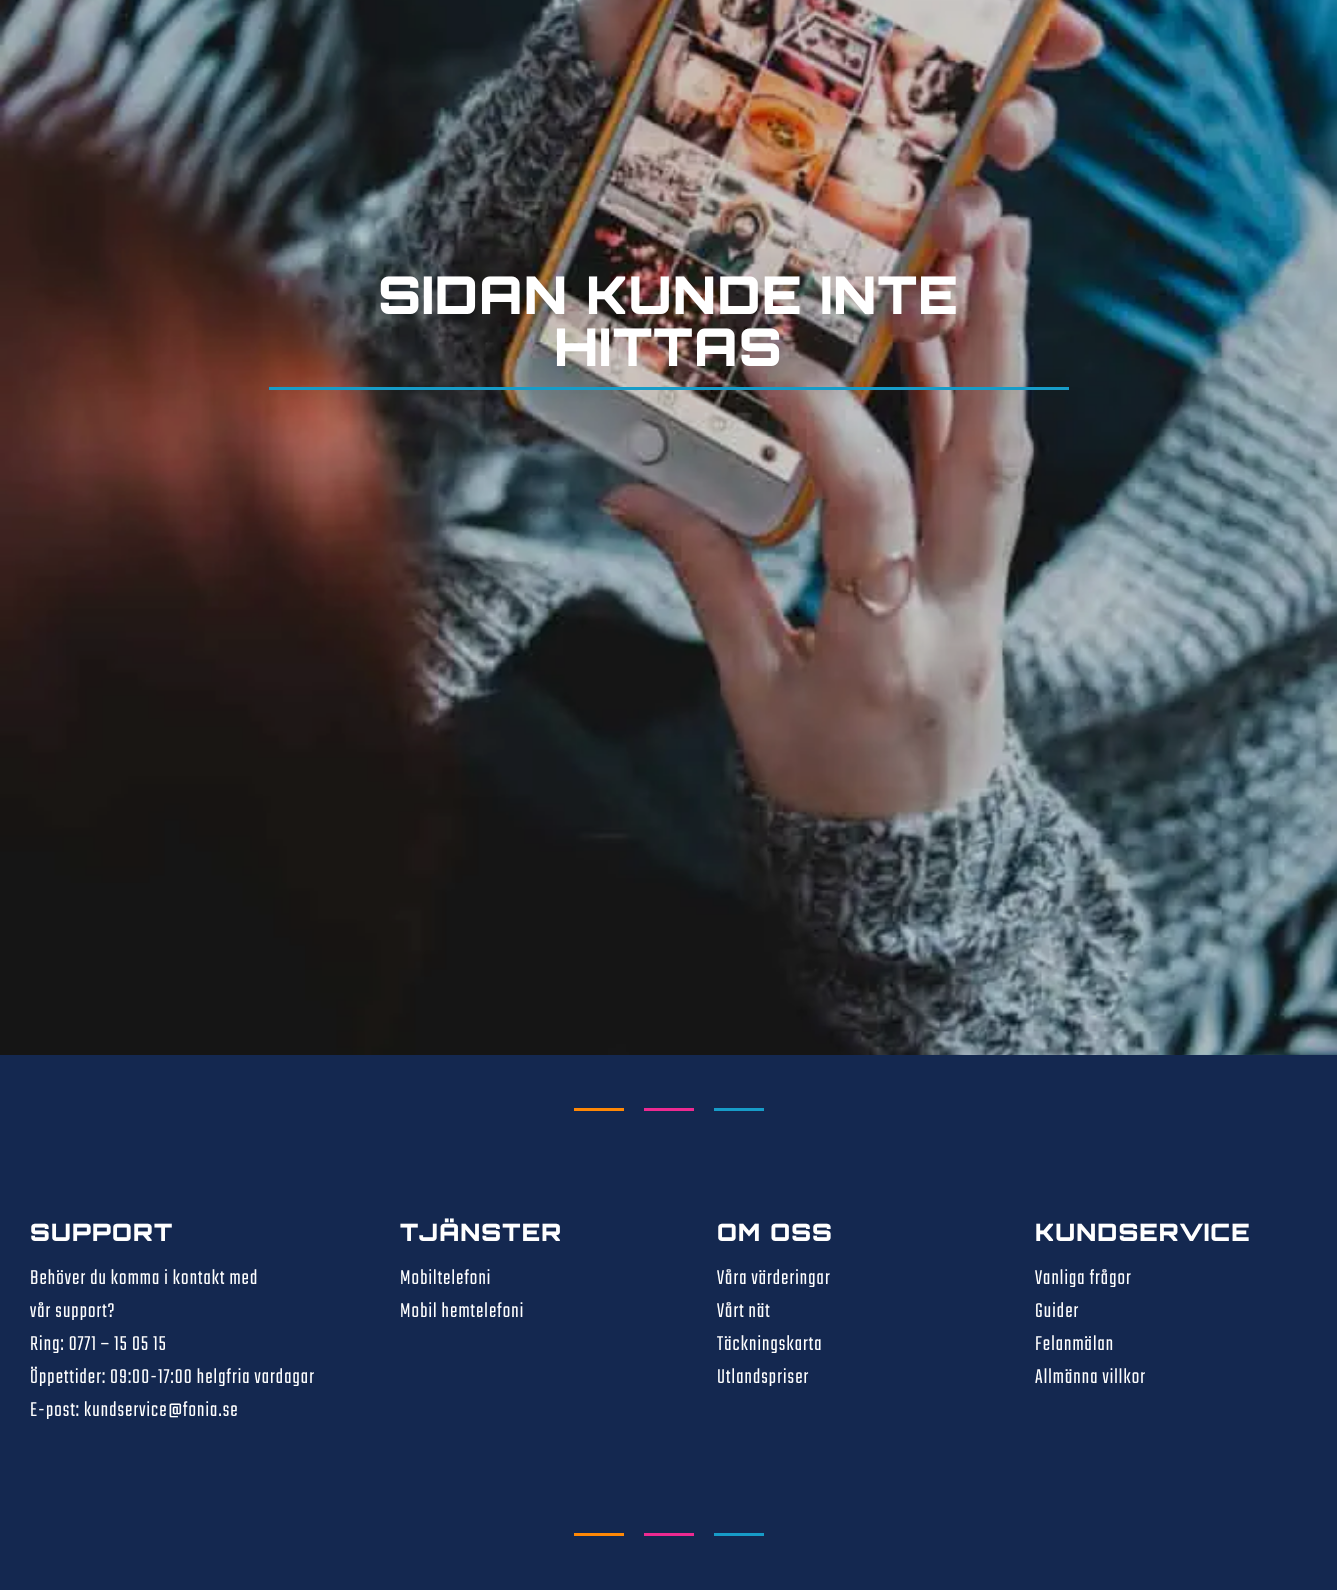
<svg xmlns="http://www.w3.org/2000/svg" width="1337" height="1590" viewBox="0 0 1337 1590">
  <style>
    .t1 { font: 900 52.1px Orbitron; letter-spacing: 1.1px; fill: #fff; }
    .t2 { font: 900 24px Orbitron; letter-spacing: 1.1px; fill: #fff; }
    .t3 { font: 300 22px Teko; letter-spacing: 1.1px; fill: #fff; }
  </style>
  <rect width="100%" height="100%" fill="#142850"/>
  <image x="0" y="0" width="1337" height="1055" href="images/1.png"/>
  <text x="378" y="314" class="t1">SIDAN KUNDE INTE</text>
  <text x="554" y="366" class="t1">HITTAS</text>
  <rect x="269" y="387" width="800" height="3" fill="#179cc8"/>
  <rect x="574" y="1108" width="50" height="3" fill="#ff8806"/>
  <rect x="644" y="1108" width="50" height="3" fill="#ed2a91"/>
  <rect x="714" y="1108" width="50" height="3" fill="#179cc8"/>
  <text x="30" y="1241" class="t2">SUPPORT</text>
  <text x="30" y="1284" class="t3">Behöver du komma i kontakt med</text>
  <text x="30" y="1317" class="t3">vår support?</text>
  <text x="30" y="1350" class="t3">Ring: 0771 – 15 05 15</text>
  <text x="30" y="1383" class="t3">Öppettider: 09:00-17:00 helgfria vardagar</text>
  <text x="30" y="1416" class="t3">E-post: kundservice@fonia.se</text>
  <text x="400" y="1241" class="t2">TJÄNSTER</text>
  <text x="400" y="1284" class="t3">Mobiltelefoni</text>
  <text x="400" y="1317" class="t3">Mobil hemtelefoni</text>
  <text x="717" y="1241" class="t2">OM OSS</text>
  <text x="717" y="1284" class="t3">Våra värderingar</text>
  <text x="717" y="1317" class="t3">Vårt nät</text>
  <text x="717" y="1350" class="t3">Täckningskarta</text>
  <text x="717" y="1383" class="t3">Utlandspriser</text>
  <text x="1035" y="1241" class="t2">KUNDSERVICE</text>
  <text x="1035" y="1284" class="t3">Vanliga frågor</text>
  <text x="1035" y="1317" class="t3">Guider</text>
  <text x="1035" y="1350" class="t3">Felanmälan</text>
  <text x="1035" y="1383" class="t3">Allmänna villkor</text>
  <rect x="574" y="1533" width="50" height="3" fill="#ff8806"/>
  <rect x="644" y="1533" width="50" height="3" fill="#ed2a91"/>
  <rect x="714" y="1533" width="50" height="3" fill="#179cc8"/>
</svg>
